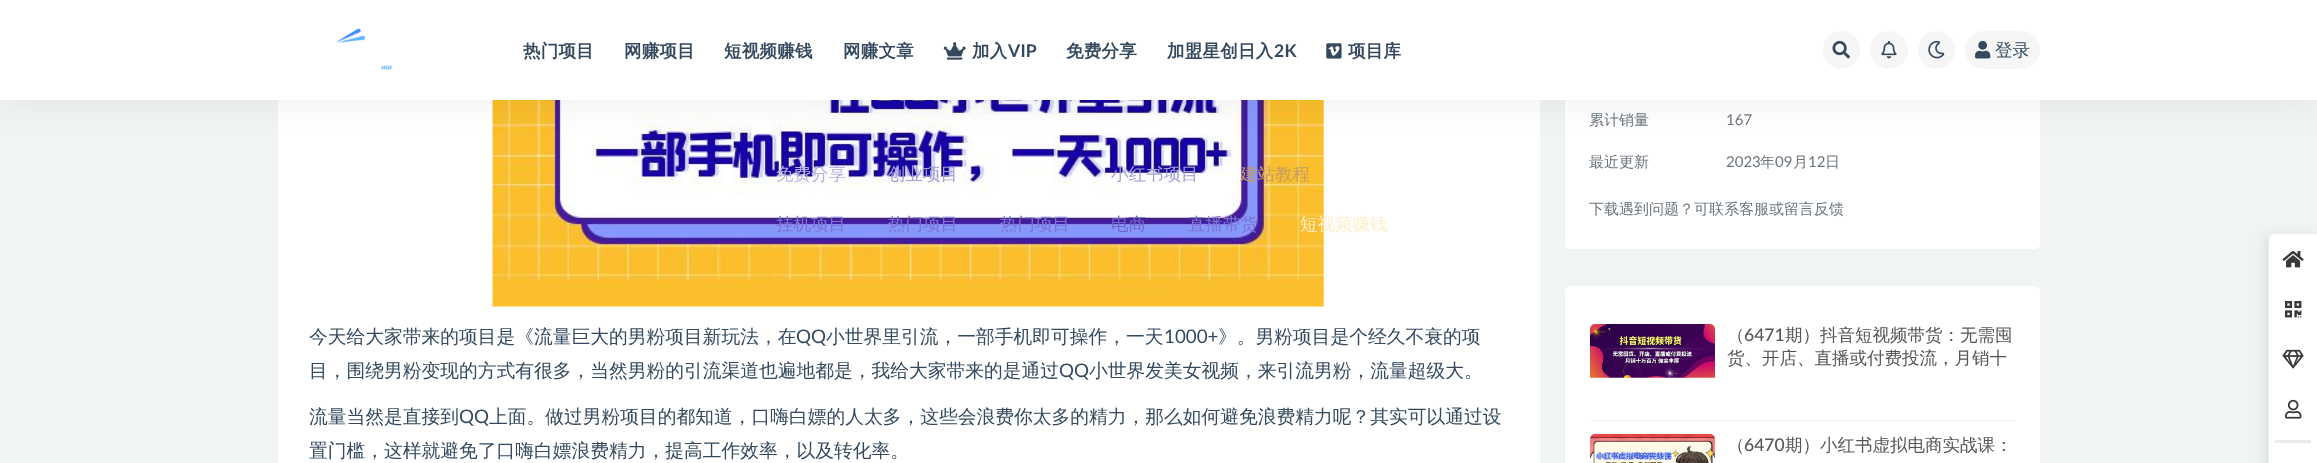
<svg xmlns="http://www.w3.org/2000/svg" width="2317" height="463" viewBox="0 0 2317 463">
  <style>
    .t1 { font: bold 17.5px WenQuanYi Zen Hei; letter-spacing: 0.25px; fill: #34495e; }
    .t2 { font: bold 17.5px Lato; letter-spacing: 0.25px; fill: #34495e; }
    .t3 { font: 500 17.5px WenQuanYi Zen Hei; fill: #34495e; }
    .t4 { font: 500 18.75px WenQuanYi Zen Hei; fill: #34495e; }
    .t5 { font: 18.75px Lato; fill: #34495e; }
    .t6 { font: 500 15px WenQuanYi Zen Hei; fill: #6c757d; }
    .t7 { font: 15px Lato; fill: #6c757d; }
    .t8 { font: 500 17.5px WenQuanYi Zen Hei; fill: #555; }
    .t9 { font: 500 17.5px Lato; fill: #555; }
    .t10 { font: 500 17.5px WenQuanYi Zen Hei; fill: #b8b2e0; }
    .t11 { font: 500 17.5px WenQuanYi Zen Hei; fill: #a49ed7; }
    .t12 { font: 500 17.5px WenQuanYi Zen Hei; fill: #c59c67; }
    .t13 { font: 500 17.5px WenQuanYi Zen Hei; fill: #7b74d5; }
    .t14 { font: 500 17.5px WenQuanYi Zen Hei; fill: #7066ca; }
    .t15 { font: 500 17.5px WenQuanYi Zen Hei; fill: #feefcd; }
  </style>
  <rect width="100%" height="100%" fill="#f0f4f5"/>
  <rect x="278" y="100" width="1262" height="363" fill="#fff"/>
  <image x="492" y="100" width="832" height="207" href="images/8.png"/>
  <rect x="1565" y="-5" width="475" height="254" rx="5" fill="#fff"/>
  <rect x="0" y="0" width="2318" height="100" fill="#00000012" filter="blur(19px)"/>
  <rect x="0" y="0" width="2317" height="100" fill="#fff"/>
  <image x="336" y="28" width="56" height="42" href="images/1.png"/>
  <text x="523" y="57" class="t1">热门项目</text>
  <text x="624" y="57" class="t1">网赚项目</text>
  <text x="724" y="57" class="t1">短视频赚钱</text>
  <text x="843" y="57" class="t1">网赚文章</text>
  <image x="943" y="42" width="23" height="18" href="images/2.png"/>
  <text x="972" y="57" class="t1">加入</text>
  <text x="1008" y="57" class="t2">VIP</text>
  <text x="1066" y="57" class="t1">免费分享</text>
  <text x="1167" y="57" class="t1">加盟星创日入</text>
  <text x="1274" y="57" class="t2">2K</text>
  <image x="1326" y="43" width="16" height="16" href="images/3.png"/>
  <text x="1348" y="57" class="t1">项目库</text>
  <rect x="1823" y="31" width="37" height="38" rx="18.5" fill="#f6f6f6"/>
  <image x="1832" y="40" width="18" height="19" href="images/4.png"/>
  <circle cx="1889" cy="50" r="19" fill="#f6f6f6"/>
  <image x="1881" y="41" width="16" height="18" href="images/5.png"/>
  <rect x="1918" y="31" width="37" height="38" rx="18.5" fill="#f6f6f6"/>
  <image x="1928" y="40" width="17" height="19" href="images/6.png"/>
  <rect x="1965" y="31" width="75" height="38" rx="19" fill="#f6f6f6"/>
  <image x="1975" y="40" width="16" height="19" href="images/7.png"/>
  <text x="1995" y="56" class="t3">登录</text>
  <text x="309" y="343" class="t4">今天给大家带来的项目是《流量巨大的男粉项目新玩法，在</text>
  <text x="796" y="343" class="t5">QQ</text>
  <text x="826" y="343" class="t4">小世界里引流，一部手机即可操作，一天</text>
  <text x="1164" y="343" class="t5">1000+</text>
  <text x="1218" y="343" class="t4">》。男粉项目是个经久不衰的项</text>
  <text x="309" y="377" class="t4">目，围绕男粉变现的方式有很多，当然男粉的引流渠道也遍地都是，我给大家带来的是通过</text>
  <text x="1059" y="377" class="t5">QQ</text>
  <text x="1089" y="377" class="t4">小世界发美女视频，来引流男粉，流量超级大。</text>
  <text x="309" y="423" class="t4">流量当然是直接到</text>
  <text x="459" y="423" class="t5">QQ</text>
  <text x="489" y="423" class="t4">上面。做过男粉项目的都知道，口嗨白嫖的人太多，这些会浪费你太多的精力，那么如何避免浪费精力呢？其实可以通过设</text>
  <text x="309" y="457" class="t4">置门槛，这样就避免了口嗨白嫖浪费精力，提高工作效率，以及转化率。</text>
  <text x="1589" y="125" class="t6">累计销量</text>
  <text x="1726" y="125" class="t7">167</text>
  <text x="1589" y="167" class="t6">最近更新</text>
  <text x="1726" y="167" class="t7">2023</text>
  <text x="1760" y="167" class="t6">年</text>
  <text x="1775" y="167" class="t7">09</text>
  <text x="1793" y="167" class="t6">月</text>
  <text x="1808" y="167" class="t7">12</text>
  <text x="1825" y="167" class="t6">日</text>
  <text x="1589" y="214" class="t6">下载遇到问题？可联系客服或留言反馈</text>
  <rect x="1565" y="286" width="475" height="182" rx="5" fill="#fff"/>
  <rect x="1590" y="420" width="425" height="1" fill="#f0f4f5"/>
  <image x="1590" y="324" width="125" height="54" href="images/9.png"/>
  <text x="1727" y="341" class="t8">（</text>
  <text x="1744" y="341" class="t9">6471</text>
  <text x="1785" y="341" class="t8">期）抖音短视频带货：无需囤</text>
  <text x="1727" y="364" class="t8">货、开店、直播或付费投流，月销十</text>
  <image x="1590" y="434" width="125" height="29" href="images/10.png"/>
  <text x="1727" y="451" class="t8">（</text>
  <text x="1744" y="451" class="t9">6470</text>
  <text x="1785" y="451" class="t8">期）小红书虚拟电商实战课：</text>
  <text x="776" y="180" class="t10">免费分享</text>
  <text x="888" y="180" class="t11">创业项目</text>
  <text x="1111" y="180" class="t11">小红书项目</text>
  <text x="1240" y="180" class="t12">建站教程</text>
  <text x="776" y="230" class="t13">挂机项目</text>
  <text x="888" y="230" class="t13">热门项目</text>
  <text x="1000" y="230" class="t13">热门项目</text>
  <text x="1111" y="230" class="t14">电商</text>
  <text x="1188" y="230" class="t13">直播带货</text>
  <text x="1300" y="230" class="t15">短视频赚钱</text>
  <rect x="2266" y="235" width="45" height="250" rx="4" fill="#0000001a" filter="blur(6px)"/>
  <path d="M2274 233H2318V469H2274C2270.5 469 2268 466.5 2268 463V239C2268 235.5 2270.5 233 2274 233Z" fill="#fff"/>
  <path d="M2274 232H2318V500H2274C2270 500 2268 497 2268 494V239C2268 235 2270 232 2274 232ZM2274 234H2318V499H2274C2271 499 2269 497 2269 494V239C2269 236 2271 234 2274 234Z" fill="#eee" fill-rule="evenodd"/>
  <image x="2282" y="251" width="22" height="17" href="images/11.png"/>
  <image x="2285" y="301" width="17" height="17" href="images/12.png"/>
  <image x="2282" y="349" width="22" height="20" href="images/13.png"/>
  <image x="2285" y="399" width="17" height="20" href="images/14.png"/>
  <rect x="2275" y="440" width="36" height="3" fill="#ebebeb"/>
</svg>
